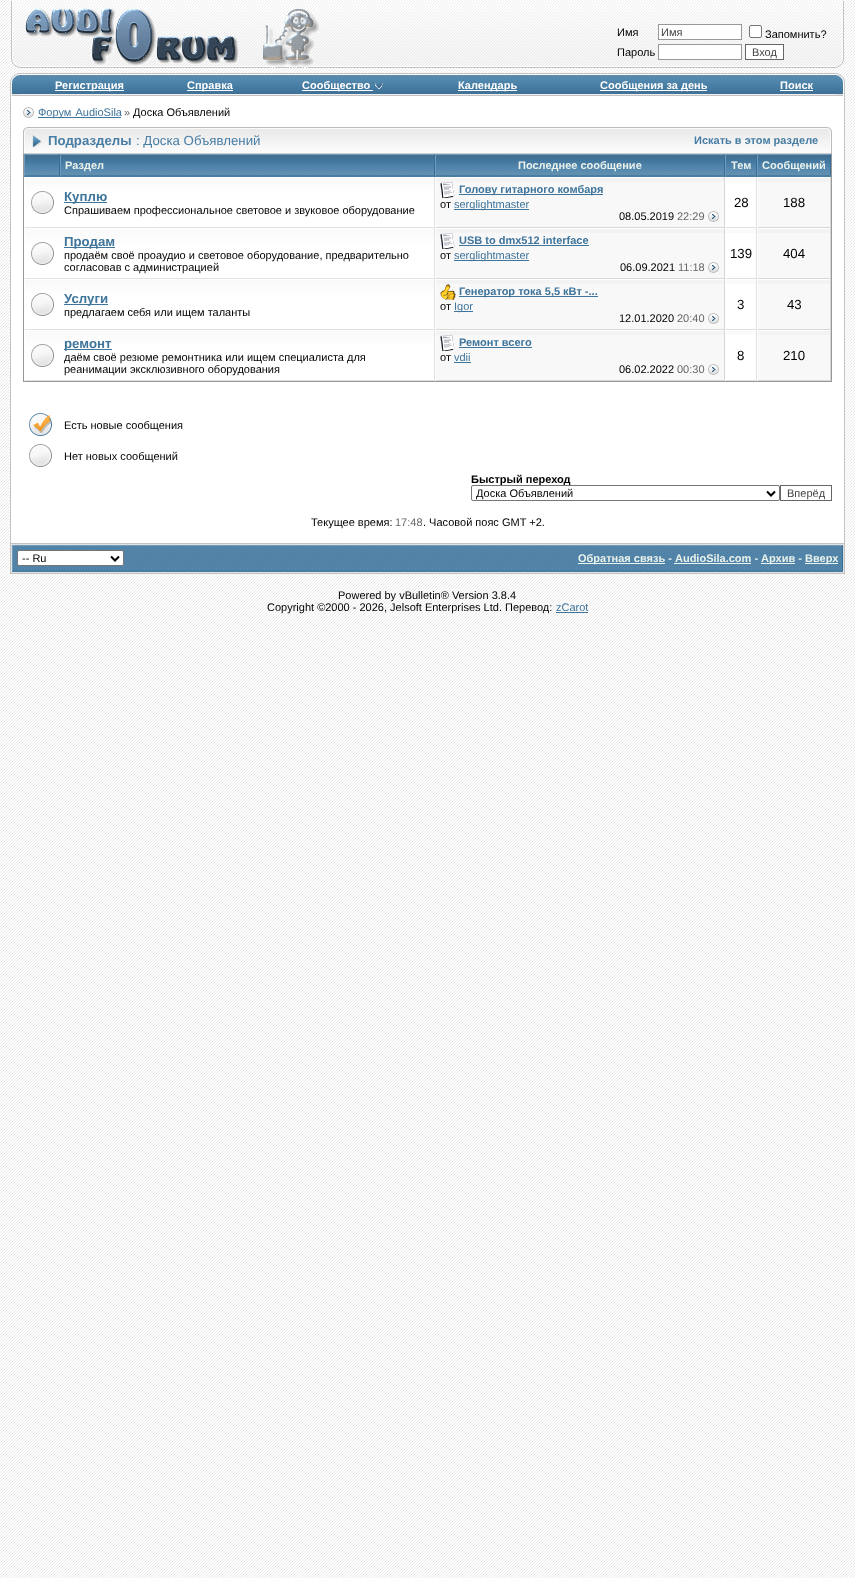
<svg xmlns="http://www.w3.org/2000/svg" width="855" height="1578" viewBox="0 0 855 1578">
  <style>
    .t1 { font: 11px Liberation Sans; fill: #000; }
    .t2 { font: 11px Liberation Sans; fill: #444; }
    .t3 { font: bold 11px Liberation Sans; fill: #fff; }
    .t4 { font: 11px Liberation Sans; fill: #3f749b; }
    .t5 { font: 11px Liberation Sans; fill: #666; }
    .t6 { font: bold 13.25px Liberation Sans; fill: #487da4; }
    .t7 { font: 13.25px Liberation Sans; fill: #487da4; }
    .t8 { font: bold 11px Liberation Sans; fill: #487da4; }
    .t9 { font: bold 11px Liberation Sans; fill: #eaf3ec; }
    .t10 { font: bold 13.25px Liberation Sans; fill: #3f749b; }
    .t11 { font: bold 11px Liberation Sans; fill: #3f749b; }
    .t12 { font: 13.25px Liberation Sans; fill: #000; }
    .t13 { font: bold 11px Liberation Sans; fill: #000; }
  </style>
  <rect width="100%" height="100%" fill="#fff"/>
  <image x="0" y="0" width="855" height="1578" href="images/1.png"/>
  <image x="13" y="1" width="831" height="67" href="images/2.png"/>
  <image x="11" y="1" width="9" height="67" href="images/3.png"/>
  <image x="25" y="8" width="295" height="60" href="images/4.png"/>
  <text x="617" y="36" class="t1">Имя</text>
  <rect x="658.5" y="24.5" width="83" height="15" fill="#fff" stroke="#989898"/>
  <text x="661" y="36" class="t2">Имя</text>
  <rect x="749.5" y="25.5" width="12" height="12" rx="1.5" fill="#fff" stroke="#767676"/>
  <text x="765" y="38" class="t1">Запомнить?</text>
  <text x="617" y="56" class="t1">Пароль</text>
  <rect x="658.5" y="44.5" width="83" height="15" fill="#fff" stroke="#989898"/>
  <rect x="745.5" y="44.5" width="38" height="15" fill="#fff" stroke="#666"/>
  <text x="752" y="56" class="t2">Вход</text>
  <image x="835" y="1" width="9" height="67" href="images/5.png"/>
  <image x="14" y="73" width="5" height="2" href="images/6.png"/>
  <image x="19" y="73" width="817" height="2" href="images/7.png"/>
  <image x="836" y="73" width="5" height="2" href="images/8.png"/>
  <image x="10" y="75" width="9" height="21" href="images/9.png"/>
  <image x="19" y="75" width="141" height="21" href="images/10.png"/>
  <rect x="55" y="90" width="69" height="1" fill="#fff"/>
  <text x="55" y="89" class="t3">Регистрация</text>
  <image x="160" y="75" width="101" height="21" href="images/11.png"/>
  <rect x="187" y="90" width="46" height="1" fill="#fff"/>
  <text x="187" y="89" class="t3">Справка</text>
  <image x="261" y="75" width="164" height="21" href="images/12.png"/>
  <rect x="302" y="90" width="71" height="1" fill="#fff"/>
  <text x="302" y="89" class="t3">Сообщество</text>
  <image x="375" y="83" width="8" height="6" href="images/13.png"/>
  <image x="425" y="75" width="124" height="21" href="images/14.png"/>
  <rect x="458" y="90" width="59" height="1" fill="#fff"/>
  <text x="458" y="89" class="t3">Календарь</text>
  <image x="549" y="75" width="208" height="21" href="images/15.png"/>
  <rect x="600" y="90" width="107" height="1" fill="#fff"/>
  <text x="600" y="89" class="t3">Сообщения за день</text>
  <image x="757" y="75" width="79" height="21" href="images/16.png"/>
  <text x="780" y="89" class="t3">Поиск</text>
  <rect x="780" y="90" width="33" height="1" fill="#fff"/>
  <image x="836" y="75" width="9" height="21" href="images/17.png"/>
  <rect x="11" y="96" width="833" height="447" fill="#fff"/>
  <rect x="844" y="96" width="1" height="447" fill="#c2c2c2"/>
  <rect x="10" y="96" width="1" height="447" fill="#c2c2c2"/>
  <image x="23" y="107" width="11" height="11" href="images/18.png"/>
  <rect x="38" y="117" width="83" height="1" fill="#3f749b"/>
  <text x="38" y="116" word-spacing="1" class="t4">Форум AudioSila</text>
  <text x="124" y="116" class="t5">»</text>
  <text x="133" y="116" class="t1">Доска Объявлений</text>
  <image x="24" y="127" width="807" height="27" href="images/19.png"/>
  <image x="23" y="127" width="19" height="27" href="images/20.png"/>
  <text x="48" y="145" class="t6">Подразделы</text>
  <text x="136" y="145" class="t7">: Доска Объявлений</text>
  <text x="694" y="144" class="t8">Искать в этом разделе</text>
  <image x="827" y="127" width="5" height="27" href="images/21.png"/>
  <rect x="25" y="227" width="409" height="154" fill="#e1e1e1"/>
  <rect x="831" y="154" width="1" height="228" fill="#989898"/>
  <rect x="23" y="381" width="809" height="1" fill="#989898"/>
  <rect x="23" y="154" width="1" height="228" fill="#989898"/>
  <image x="24" y="155" width="36" height="22" href="images/22.png"/>
  <rect x="24" y="154" width="807" height="1" fill="#709bbc"/>
  <path d="M60 154V177L59 175V155Z" fill="#356d96"/>
  <path d="M60 177H24L25 175H59Z" fill="#487da4"/>
  <path d="M24 177V154L25 155V175Z" fill="#709bbc"/>
  <image x="60" y="155" width="375" height="22" href="images/23.png"/>
  <path d="M435 154V177L434 175V155Z" fill="#356d96"/>
  <path d="M435 177H60L61 175H434Z" fill="#487da4"/>
  <path d="M60 177V154L61 155V175Z" fill="#709bbc"/>
  <text x="65" y="169" class="t9">Раздел</text>
  <image x="435" y="155" width="290" height="22" href="images/24.png"/>
  <path d="M725 154V177L724 175V155Z" fill="#356d96"/>
  <path d="M725 177H435L436 175H724Z" fill="#487da4"/>
  <path d="M435 177V154L436 155V175Z" fill="#709bbc"/>
  <text x="518" y="169" class="t9">Последнее сообщение</text>
  <image x="725" y="155" width="32" height="22" href="images/25.png"/>
  <path d="M757 154V177L756 175V155Z" fill="#356d96"/>
  <path d="M757 177H725L726 175H756Z" fill="#487da4"/>
  <path d="M725 177V154L726 155V175Z" fill="#709bbc"/>
  <text x="731" y="169" class="t9">Тем</text>
  <image x="757" y="155" width="74" height="22" href="images/26.png"/>
  <path d="M831 154V177L830 175V155Z" fill="#356d96"/>
  <path d="M831 177H757L758 175H830Z" fill="#487da4"/>
  <path d="M757 177V154L758 155V175Z" fill="#709bbc"/>
  <text x="762" y="169" class="t9">Сообщений</text>
  <image x="25" y="178" width="35" height="20" href="images/27.png"/>
  <image x="31" y="191" width="23" height="23" href="images/28.png"/>
  <image x="60" y="178" width="374" height="20" href="images/29.png"/>
  <rect x="434" y="177" width="1" height="51" fill="#e0e0e0"/>
  <rect x="64" y="202" width="43" height="1" fill="#3f749b"/>
  <text x="64" y="201" class="t10">Куплю</text>
  <text x="64" y="214" class="t1">Спрашиваем профессиональное световое и звуковое оборудование</text>
  <rect x="436" y="182" width="288" height="45" fill="#f8f8f8"/>
  <rect x="435" y="178" width="290" height="4" fill="#f3f3f3"/>
  <rect x="724" y="177" width="1" height="51" fill="#d7d7d7"/>
  <rect x="435" y="227" width="290" height="1" fill="#d7d7d7"/>
  <rect x="435" y="177" width="1" height="51" fill="#fff"/>
  <image x="440" y="182" width="15" height="16" href="images/30.png"/>
  <rect x="459" y="194" width="144" height="1" fill="#3f749b"/>
  <text x="459" y="193" class="t11">Голову гитарного комбаря</text>
  <text x="440" y="208" class="t1">от</text>
  <rect x="454" y="209" width="75" height="1" fill="#3f749b"/>
  <text x="454" y="208" class="t4">serglightmaster</text>
  <text x="619" y="220" class="t1">08.05.2019</text>
  <text x="677" y="220" class="t5">22:29</text>
  <image x="708" y="211" width="11" height="11" href="images/31.png"/>
  <rect x="725" y="178" width="32" height="4" fill="#fafafa"/>
  <rect x="756" y="177" width="1" height="51" fill="#e0e0e0"/>
  <rect x="725" y="227" width="32" height="1" fill="#e0e0e0"/>
  <rect x="725" y="177" width="1" height="51" fill="#fff"/>
  <text x="734" y="207" class="t12">28</text>
  <rect x="758" y="182" width="72" height="45" fill="#f8f8f8"/>
  <rect x="757" y="178" width="74" height="4" fill="#f3f3f3"/>
  <rect x="830" y="177" width="1" height="51" fill="#d7d7d7"/>
  <rect x="757" y="227" width="74" height="1" fill="#d7d7d7"/>
  <rect x="757" y="177" width="1" height="51" fill="#fff"/>
  <text x="783" y="207" class="t12">188</text>
  <rect x="25" y="249" width="409" height="29" fill="#fff"/>
  <image x="25" y="229" width="35" height="20" href="images/27.png"/>
  <rect x="24" y="228" width="411" height="1" fill="#fff"/>
  <image x="31" y="242" width="23" height="23" href="images/28.png"/>
  <image x="60" y="229" width="374" height="20" href="images/29.png"/>
  <rect x="434" y="228" width="1" height="51" fill="#e0e0e0"/>
  <rect x="64" y="247" width="51" height="1" fill="#3f749b"/>
  <text x="64" y="246" class="t10">Продам</text>
  <text x="64" y="259" class="t1">продаём своё проаудио и световое оборудование, предварительно</text>
  <text x="64" y="271" class="t1">согласовав с администрацией</text>
  <rect x="436" y="233" width="288" height="45" fill="#f8f8f8"/>
  <rect x="435" y="229" width="290" height="4" fill="#f3f3f3"/>
  <rect x="724" y="228" width="1" height="51" fill="#d7d7d7"/>
  <rect x="435" y="278" width="290" height="1" fill="#d7d7d7"/>
  <rect x="435" y="228" width="1" height="51" fill="#fff"/>
  <image x="440" y="233" width="15" height="16" href="images/30.png"/>
  <text x="459" y="244" class="t11">USB to dmx512 interface</text>
  <rect x="459" y="245" width="130" height="1" fill="#3f749b"/>
  <text x="440" y="259" class="t1">от</text>
  <rect x="454" y="260" width="75" height="1" fill="#3f749b"/>
  <text x="454" y="259" class="t4">serglightmaster</text>
  <text x="620" y="271" class="t1">06.09.2021</text>
  <text x="678" y="271" class="t5">11:18</text>
  <image x="708" y="262" width="11" height="11" href="images/31.png"/>
  <rect x="725" y="229" width="32" height="4" fill="#fafafa"/>
  <rect x="756" y="228" width="1" height="51" fill="#e0e0e0"/>
  <rect x="725" y="278" width="32" height="1" fill="#e0e0e0"/>
  <rect x="725" y="228" width="1" height="51" fill="#fff"/>
  <text x="730" y="258" class="t12">139</text>
  <rect x="758" y="233" width="72" height="45" fill="#f8f8f8"/>
  <rect x="757" y="229" width="74" height="4" fill="#f3f3f3"/>
  <rect x="830" y="228" width="1" height="51" fill="#d7d7d7"/>
  <rect x="757" y="278" width="74" height="1" fill="#d7d7d7"/>
  <rect x="757" y="228" width="1" height="51" fill="#fff"/>
  <text x="783" y="258" class="t12">404</text>
  <rect x="25" y="300" width="409" height="29" fill="#fff"/>
  <image x="25" y="280" width="35" height="20" href="images/27.png"/>
  <rect x="24" y="279" width="411" height="1" fill="#fff"/>
  <image x="31" y="293" width="23" height="23" href="images/28.png"/>
  <rect x="436" y="284" width="288" height="45" fill="#f8f8f8"/>
  <rect x="435" y="280" width="290" height="4" fill="#f3f3f3"/>
  <rect x="724" y="279" width="1" height="51" fill="#d7d7d7"/>
  <rect x="435" y="329" width="290" height="1" fill="#d7d7d7"/>
  <rect x="435" y="279" width="1" height="51" fill="#fff"/>
  <image x="440" y="284" width="16" height="16" href="images/32.png"/>
  <rect x="459" y="296" width="139" height="1" fill="#3f749b"/>
  <text x="459" y="295" class="t11">Генератор тока 5,5 кВт -...</text>
  <text x="440" y="310" class="t1">от</text>
  <rect x="454" y="311" width="19" height="1" fill="#3f749b"/>
  <text x="454" y="310" class="t4">Igor</text>
  <text x="619" y="322" class="t1">12.01.2020</text>
  <text x="677" y="322" class="t5">20:40</text>
  <image x="708" y="313" width="11" height="11" href="images/31.png"/>
  <image x="60" y="280" width="374" height="20" href="images/29.png"/>
  <rect x="434" y="279" width="1" height="51" fill="#e0e0e0"/>
  <rect x="64" y="304" width="44" height="1" fill="#3f749b"/>
  <text x="64" y="303" class="t10">Услуги</text>
  <text x="64" y="316" class="t1">предлагаем себя или ищем таланты</text>
  <rect x="725" y="280" width="32" height="4" fill="#fafafa"/>
  <rect x="756" y="279" width="1" height="51" fill="#e0e0e0"/>
  <rect x="725" y="329" width="32" height="1" fill="#e0e0e0"/>
  <rect x="725" y="279" width="1" height="51" fill="#fff"/>
  <text x="737" y="309" class="t12">3</text>
  <rect x="758" y="284" width="72" height="45" fill="#f8f8f8"/>
  <rect x="757" y="280" width="74" height="4" fill="#f3f3f3"/>
  <rect x="830" y="279" width="1" height="51" fill="#d7d7d7"/>
  <rect x="757" y="329" width="74" height="1" fill="#d7d7d7"/>
  <rect x="757" y="279" width="1" height="51" fill="#fff"/>
  <text x="787" y="309" class="t12">43</text>
  <rect x="25" y="351" width="409" height="29" fill="#fff"/>
  <image x="25" y="331" width="35" height="20" href="images/27.png"/>
  <rect x="24" y="330" width="411" height="1" fill="#fff"/>
  <image x="31" y="344" width="23" height="23" href="images/28.png"/>
  <rect x="436" y="335" width="288" height="45" fill="#f8f8f8"/>
  <rect x="435" y="331" width="290" height="4" fill="#f3f3f3"/>
  <rect x="724" y="330" width="1" height="51" fill="#d7d7d7"/>
  <rect x="435" y="380" width="290" height="1" fill="#d7d7d7"/>
  <rect x="435" y="330" width="1" height="51" fill="#fff"/>
  <image x="440" y="335" width="15" height="16" href="images/30.png"/>
  <text x="459" y="346" class="t11">Ремонт всего</text>
  <rect x="459" y="347" width="73" height="1" fill="#3f749b"/>
  <text x="440" y="361" class="t1">от</text>
  <text x="454" y="361" class="t4">vdii</text>
  <rect x="454" y="362" width="17" height="1" fill="#3f749b"/>
  <text x="619" y="373" class="t1">06.02.2022</text>
  <text x="677" y="373" class="t5">00:30</text>
  <image x="708" y="364" width="11" height="11" href="images/31.png"/>
  <image x="60" y="331" width="374" height="20" href="images/29.png"/>
  <rect x="434" y="330" width="1" height="51" fill="#e0e0e0"/>
  <rect x="64" y="349" width="48" height="1" fill="#3f749b"/>
  <text x="64" y="348" class="t10">ремонт</text>
  <text x="64" y="361" class="t1">даём своё резюме ремонтника или ищем специалиста для</text>
  <text x="64" y="373" class="t1">реанимации эксклюзивного оборудования</text>
  <rect x="725" y="331" width="32" height="4" fill="#fafafa"/>
  <rect x="756" y="330" width="1" height="51" fill="#e0e0e0"/>
  <rect x="725" y="380" width="32" height="1" fill="#e0e0e0"/>
  <rect x="725" y="330" width="1" height="51" fill="#fff"/>
  <text x="737" y="360" class="t12">8</text>
  <rect x="758" y="335" width="72" height="45" fill="#f8f8f8"/>
  <rect x="757" y="331" width="74" height="4" fill="#f3f3f3"/>
  <rect x="830" y="330" width="1" height="51" fill="#d7d7d7"/>
  <rect x="757" y="380" width="74" height="1" fill="#d7d7d7"/>
  <rect x="757" y="330" width="1" height="51" fill="#fff"/>
  <text x="783" y="360" class="t12">210</text>
  <image x="29" y="413" width="23" height="23" href="images/33.png"/>
  <text x="64" y="429" class="t1">Есть новые сообщения</text>
  <image x="29" y="444" width="23" height="23" href="images/34.png"/>
  <text x="64" y="460" class="t1">Нет новых сообщений</text>
  <text x="471" y="483" class="t13">Быстрый переход</text>
  <rect x="471.5" y="485.5" width="308" height="15" rx="1.5" fill="#fff" stroke="#767676"/>
  <path d="M767 491.5L771 495.5L775 491.5" fill="none" stroke="#000" stroke-width="2"/>
  <text x="476" y="497" class="t1">Доска Объявлений</text>
  <rect x="780.5" y="485.5" width="51" height="15" fill="none" stroke="#666"/>
  <text x="787" y="497" class="t2">Вперёд</text>
  <text x="311" y="526" class="t1">Текущее время:</text>
  <text x="395" y="526" class="t5">17:48</text>
  <text x="423" y="526" class="t1">. Часовой пояс GMT +2.</text>
  <rect x="10.5" y="543.5" width="834" height="30" fill="#e1e1e1" stroke="#c2c2c2"/>
  <image x="12" y="546" width="116" height="26" href="images/35.png"/>
  <rect x="12" y="545" width="831" height="1" fill="#709bbc"/>
  <path d="M128 572H12L13 570H128Z" fill="#487da4"/>
  <path d="M12 572V545L13 546V570Z" fill="#709bbc"/>
  <rect x="17.5" y="550.5" width="106" height="15" rx="1.5" fill="#fff" stroke="#767676"/>
  <path d="M111 556.5L115 560.5L119 556.5" fill="none" stroke="#000" stroke-width="2"/>
  <text x="22" y="562" class="t1">-- Ru</text>
  <image x="128" y="546" width="715" height="26" href="images/36.png"/>
  <path d="M843 545V572L842 570V546Z" fill="#356d96"/>
  <path d="M843 572H128V570H842Z" fill="#487da4"/>
  <rect x="578" y="563" width="87" height="1" fill="#eaf3ec"/>
  <text x="578" y="562" class="t9">Обратная связь - AudioSila.com -</text>
  <rect x="674" y="563" width="77" height="1" fill="#eaf3ec"/>
  <rect x="761" y="563" width="34" height="1" fill="#eaf3ec"/>
  <text x="761" y="562" class="t9">Архив -</text>
  <rect x="805" y="563" width="33" height="1" fill="#eaf3ec"/>
  <text x="805" y="562" class="t9">Вверх</text>
  <text x="338" y="599" class="t1">Powered by vBulletin® Version 3.8.4</text>
  <text x="267" y="611" class="t1">Copyright ©2000 - 2026, Jelsoft Enterprises Ltd. Перевод:</text>
  <text x="556" y="611" class="t4">zCarot</text>
  <rect x="556" y="612" width="32" height="1" fill="#3f749b"/>
</svg>
